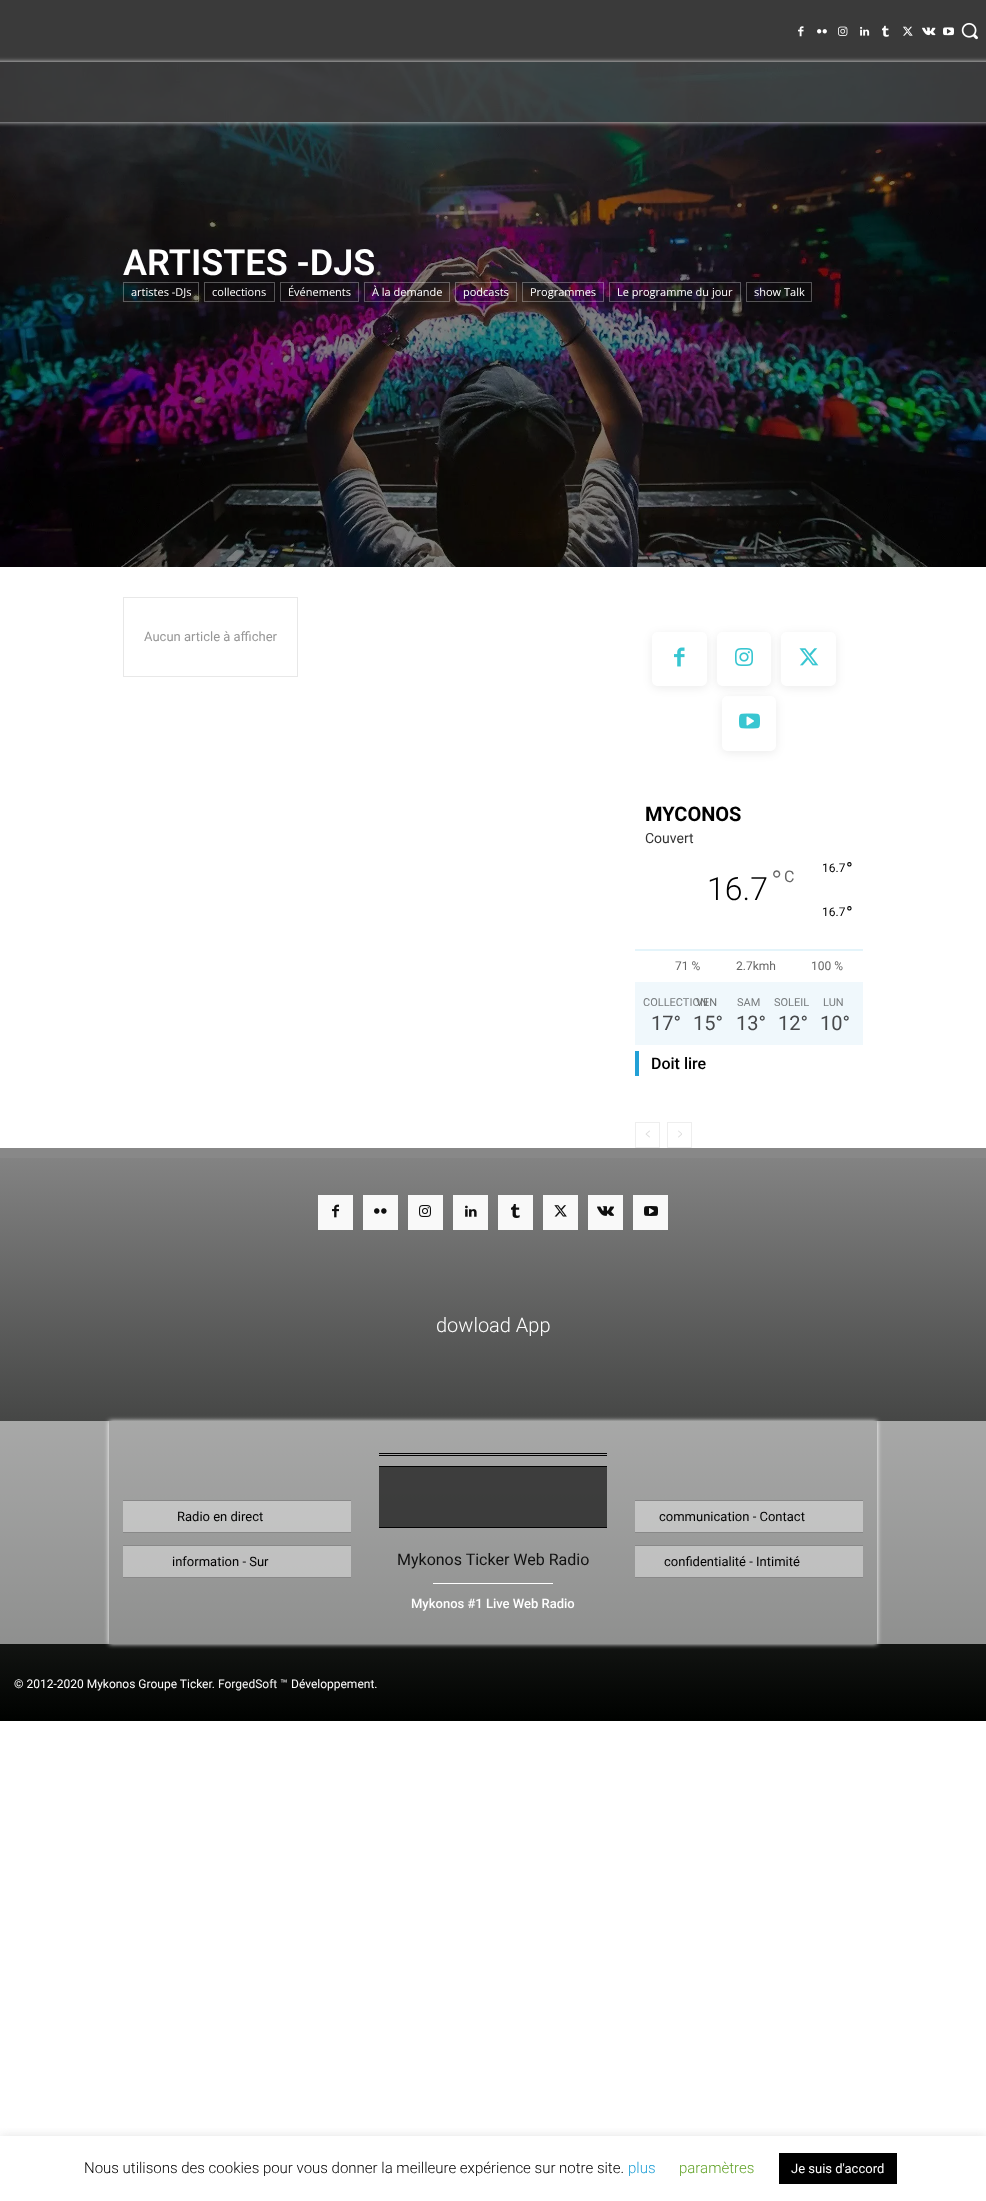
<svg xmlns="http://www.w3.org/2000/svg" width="986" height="2201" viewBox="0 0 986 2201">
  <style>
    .t1 { font: 600 36px Roboto; fill: #fff; }
    .t2 { font: 11px Open Sans; fill: #fff; }
    .t3 { font: 13px Roboto; fill: #979797; }
    .t4 { font: bold 20px Roboto; fill: #000; }
    .t5 { font: 14px Roboto; fill: #333; }
    .t6 { font: 300 32px Roboto; fill: #000; }
    .t7 { font: 300 30px Roboto; fill: #666; }
    .t8 { font: 16px Roboto; fill: #666; }
    .t9 { font: 12px Roboto; fill: #000; }
    .t10 { font: 18px Roboto; fill: #000; }
    .t11 { font: 12px Roboto; fill: #666; }
    .t12 { font: 11px Roboto; fill: #787c7e; }
    .t13 { font: 20px Roboto; fill: #484a4c; }
    .t14 { font: 11px Roboto; fill: #6c7071; }
    .t15 { font: 500 16px Roboto; fill: #000; }
    .t16 { font: 300 20px Roboto; fill: #fff; }
    .t17 { font: 13px Roboto; fill: #000; }
    .t18 { font: 16px Roboto; fill: #111; }
    .t19 { font: 500 13px Roboto; fill: #fff; }
    .t20 { font: 12px Roboto; fill: #fff; }
    .t21 { font: 12px Roboto; fill: #f7f7f7; }
    .t22 { font: 300 15px Roboto; fill: #000; }
    .t23 { font: 300 15px Roboto; fill: #22a0d6; }
    .t24 { font: 300 15px Roboto; fill: #62a329; }
    .t25 { font: 13px Roboto; fill: #fff; }
  </style>
  <defs>
    <clipPath id="clip1"><path d="M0 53H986V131H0ZM-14 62H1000V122H-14Z" clip-rule="evenodd"/></clipPath>
    <clipPath id="clip2"><path d="M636 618H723V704H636ZM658 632H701C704.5 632 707 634.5 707 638V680C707 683.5 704.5 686 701 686H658C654.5 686 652 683.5 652 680V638C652 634.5 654.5 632 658 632Z" clip-rule="evenodd"/></clipPath>
    <clipPath id="clip3"><path d="M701 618H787V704H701ZM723 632H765C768.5 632 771 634.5 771 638V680C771 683.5 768.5 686 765 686H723C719.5 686 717 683.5 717 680V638C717 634.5 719.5 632 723 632Z" clip-rule="evenodd"/></clipPath>
    <clipPath id="clip4"><path d="M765 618H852V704H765ZM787 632H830C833.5 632 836 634.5 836 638V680C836 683.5 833.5 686 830 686H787C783.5 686 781 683.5 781 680V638C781 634.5 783.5 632 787 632Z" clip-rule="evenodd"/></clipPath>
    <clipPath id="clip5"><path d="M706 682H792V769H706ZM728 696H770C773.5 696 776 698.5 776 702V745C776 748.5 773.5 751 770 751H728C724.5 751 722 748.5 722 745V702C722 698.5 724.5 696 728 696Z" clip-rule="evenodd"/></clipPath>
    <linearGradient id="g1" gradientUnits="userSpaceOnUse" x1="493" y1="1148" x2="493" y2="1721"><stop offset="0" stop-color="#858585"/><stop offset="1" stop-color="#000200"/></linearGradient>
    <clipPath id="clip6"><path d="M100 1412H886V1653H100ZM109 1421H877V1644H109Z" clip-rule="evenodd"/></clipPath>
    <clipPath id="clip7"><rect x="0" y="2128" width="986" height="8"/></clipPath>
  </defs>
  <rect width="100%" height="100%" fill="#fff"/>
  <image x="0" y="62" width="986" height="60" href="images/1.png"/>
  <rect x="0" y="0" width="986" height="62" fill="#3a3a3a"/>
  <image x="798" y="26" width="6" height="11" href="images/2.png"/>
  <image x="817" y="29" width="10" height="5" href="images/3.png"/>
  <image x="838" y="26" width="10" height="10" href="images/4.png"/>
  <image x="860" y="26" width="10" height="10" href="images/5.png"/>
  <image x="882" y="25" width="7" height="12" href="images/6.png"/>
  <image x="903" y="26" width="10" height="10" href="images/7.png"/>
  <image x="922" y="27" width="14" height="9" href="images/8.png"/>
  <image x="943" y="27" width="11" height="9" href="images/9.png"/>
  <image x="961" y="22" width="17" height="18" href="images/10.png"/>
  <image x="0" y="122" width="986" height="445" href="images/11.png"/>
  <g clip-path="url(#clip1)">
    <rect x="-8" y="62" width="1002" height="60" fill="#ffffffe0" filter="blur(2.5px)"/>
  </g>
  <rect x="0" y="62" width="986" height="60" fill="#383838e0"/>
  <text x="123" y="275" class="t1">ARTISTES -DJS</text>
  <rect x="123.5" y="282.5" width="75" height="19" fill="none" stroke="#ffffff4d"/>
  <text x="131" y="296" class="t2">artistes -DJs</text>
  <rect x="204.5" y="282.5" width="70" height="19" fill="none" stroke="#ffffff4d"/>
  <text x="212" y="296" class="t2">collections</text>
  <rect x="280.5" y="282.5" width="78" height="19" fill="none" stroke="#ffffff4d"/>
  <text x="288" y="296" class="t2">Événements</text>
  <rect x="364.5" y="282.5" width="85" height="19" fill="none" stroke="#ffffff4d"/>
  <text x="372" y="296" class="t2">À la demande</text>
  <rect x="455.5" y="282.5" width="61" height="19" fill="none" stroke="#ffffff4d"/>
  <text x="463" y="296" class="t2">podcasts</text>
  <rect x="522.5" y="282.5" width="81" height="19" fill="none" stroke="#ffffff4d"/>
  <text x="530" y="296" class="t2">Programmes</text>
  <rect x="609.5" y="282.5" width="131" height="19" fill="none" stroke="#ffffff4d"/>
  <text x="617" y="296" class="t2">Le programme du jour</text>
  <rect x="746.5" y="282.5" width="65" height="19" fill="none" stroke="#ffffff4d"/>
  <text x="754" y="296" class="t2">show Τalk</text>
  <rect x="123.5" y="597.5" width="174" height="79" fill="none" stroke="#e8e8e8"/>
  <text x="144" y="641" class="t3">Aucun article à afficher</text>
  <g clip-path="url(#clip2)">
    <rect x="652" y="634" width="55" height="54" rx="6" fill="#00000014" filter="blur(5px)"/>
  </g>
  <image x="674" y="647" width="11" height="20" href="images/12.png"/>
  <g clip-path="url(#clip3)">
    <rect x="717" y="634" width="54" height="54" rx="6" fill="#00000014" filter="blur(5px)"/>
  </g>
  <image x="735" y="648" width="18" height="18" href="images/13.png"/>
  <g clip-path="url(#clip4)">
    <rect x="781" y="634" width="55" height="54" rx="6" fill="#00000014" filter="blur(5px)"/>
  </g>
  <image x="799" y="648" width="20" height="18" href="images/14.png"/>
  <g clip-path="url(#clip5)">
    <rect x="722" y="698" width="54" height="55" rx="6" fill="#00000014" filter="blur(5px)"/>
  </g>
  <image x="739" y="713" width="21" height="16" href="images/15.png"/>
  <text x="645" y="821" class="t4">MYCONOS</text>
  <text x="645" y="843" class="t5">Couvert</text>
  <text x="707" y="900" class="t6">16.7</text>
  <text x="771" y="892" class="t7">°</text>
  <text x="784" y="882" class="t8">C</text>
  <text x="822" y="872" class="t9">16.7</text>
  <text x="846" y="875" class="t10">°</text>
  <text x="822" y="916" class="t9">16.7</text>
  <text x="846" y="919" class="t10">°</text>
  <rect x="635" y="949" width="228" height="2" fill="#e4f4fa"/>
  <text x="675" y="970" class="t11">71 %</text>
  <text x="736" y="970" class="t11">2.7kmh</text>
  <text x="811" y="970" class="t11">100 %</text>
  <rect x="635" y="982" width="228" height="63" fill="#f0f8fc"/>
  <text x="643" y="1006" class="t12">COLLECTION</text>
  <text x="651" y="1030" class="t13">17°</text>
  <text x="696" y="1006" class="t14">VEN</text>
  <text x="693" y="1030" class="t13">15°</text>
  <text x="737" y="1006" class="t12">SAM</text>
  <text x="736" y="1030" class="t13">13°</text>
  <text x="774" y="1006" class="t12">SOLEIL</text>
  <text x="778" y="1030" class="t13">12°</text>
  <text x="823" y="1006" class="t12">LUN</text>
  <text x="820" y="1030" class="t13">10°</text>
  <rect x="635" y="1051" width="4" height="25" fill="#22a0d6"/>
  <text x="651" y="1069" class="t15">Doit lire</text>
  <rect x="635.5" y="1122.5" width="24" height="25" fill="none" stroke="#eee"/>
  <image x="645" y="1130" width="5" height="8" href="images/16.png"/>
  <rect x="667.5" y="1122.5" width="24" height="25" fill="none" stroke="#eee"/>
  <image x="678" y="1130" width="4" height="8" href="images/17.png"/>
  <rect x="0" y="1148" width="986" height="10" fill="#888"/>
  <rect x="0" y="1158" width="986" height="563" fill="url(#g1)"/>
  <rect x="318" y="1195" width="35" height="35" fill="#f9f9f9"/>
  <image x="332" y="1204" width="7" height="14" href="images/18.png"/>
  <rect x="363" y="1195" width="35" height="35" fill="#f9f9f9"/>
  <image x="374" y="1208" width="13" height="6" href="images/19.png"/>
  <rect x="408" y="1195" width="35" height="35" fill="#f9f9f9"/>
  <image x="419" y="1205" width="12" height="12" href="images/20.png"/>
  <rect x="453" y="1195" width="35" height="35" fill="#f9f9f9"/>
  <image x="465" y="1205" width="12" height="12" href="images/21.png"/>
  <rect x="498" y="1195" width="35" height="35" fill="#f9f9f9"/>
  <image x="511" y="1204" width="9" height="14" href="images/22.png"/>
  <rect x="543" y="1195" width="35" height="35" fill="#f9f9f9"/>
  <image x="554" y="1205" width="13" height="12" href="images/23.png"/>
  <rect x="588" y="1195" width="35" height="35" fill="#f9f9f9"/>
  <image x="597" y="1206" width="17" height="10" href="images/24.png"/>
  <rect x="633" y="1195" width="35" height="35" fill="#f9f9f9"/>
  <image x="644" y="1206" width="14" height="10" href="images/25.png"/>
  <text x="436" y="1332" class="t16">dowload App</text>
  <g clip-path="url(#clip6)">
    <rect x="109" y="1421" width="768" height="223" fill="#fff" filter="blur(2.5px)"/>
  </g>
  <rect x="0" y="1421" width="986" height="223" fill="#ffffff87"/>
  <rect x="123" y="1500" width="228" height="1" fill="#888"/>
  <rect x="123" y="1532" width="228" height="1" fill="#888"/>
  <rect x="123" y="1501" width="228" height="31" fill="#ffffff63"/>
  <text x="177" y="1521" class="t17">Radio en direct</text>
  <rect x="123" y="1545" width="228" height="1" fill="#888"/>
  <rect x="123" y="1577" width="228" height="1" fill="#888"/>
  <rect x="123" y="1546" width="228" height="31" fill="#ffffff63"/>
  <text x="172" y="1566" class="t17">information - Sur</text>
  <rect x="635" y="1500" width="228" height="1" fill="#888"/>
  <rect x="635" y="1532" width="228" height="1" fill="#888"/>
  <rect x="635" y="1501" width="228" height="31" fill="#ffffff63"/>
  <text x="659" y="1521" class="t17">communication - Contact</text>
  <rect x="635" y="1545" width="228" height="1" fill="#888"/>
  <rect x="635" y="1577" width="228" height="1" fill="#888"/>
  <rect x="635" y="1546" width="228" height="31" fill="#ffffff63"/>
  <text x="664" y="1566" class="t17">confidentialité - Intimité</text>
  <rect x="379" y="1453" width="228" height="1" fill="#020202"/>
  <rect x="379" y="1455" width="228" height="1" fill="#020202"/>
  <rect x="379" y="1466" width="228" height="1" fill="#020202"/>
  <rect x="379" y="1527" width="228" height="1" fill="#020202"/>
  <rect x="379" y="1467" width="228" height="60" fill="#050505a3"/>
  <text x="397" y="1565" class="t18">Mykonos Ticker Web Radio</text>
  <rect x="433" y="1583" width="120" height="1" fill="#fff"/>
  <text x="411" y="1608" class="t19">Mykonos #1 Live Web Radio</text>
  <text x="14" y="1688" class="t20">© 2012-2020 Mykonos Groupe Ticker.</text>
  <text x="218" y="1688" class="t21">ForgedSoft ™</text>
  <text x="291" y="1688" class="t20">Développement.</text>
  <g clip-path="url(#clip7)">
    <rect x="0" y="2135" width="986" height="65" fill="#acabab4d" filter="blur(5px)"/>
  </g>
  <text x="84" y="2173" class="t22">Nous utilisons des cookies pour vous donner la meilleure expérience sur notre site.</text>
  <text x="628" y="2173" class="t23">plus</text>
  <text x="679" y="2173" class="t24">paramètres</text>
  <rect x="779" y="2153" width="118" height="31" fill="#000"/>
  <text x="791" y="2173" class="t25">Je suis d'accord</text>
</svg>
